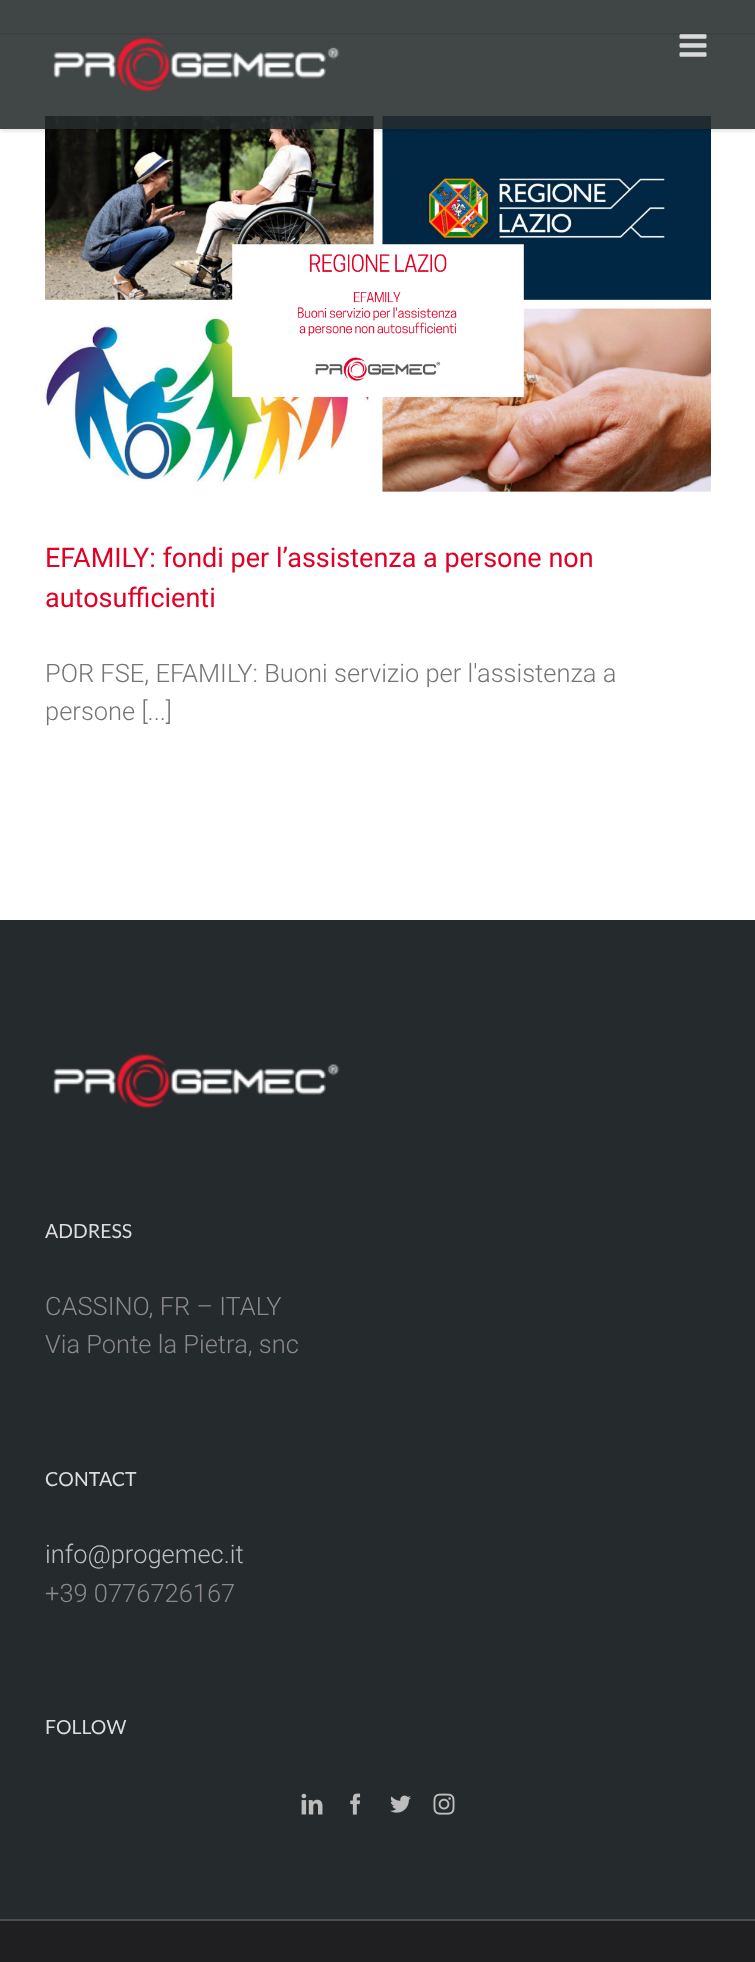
<svg xmlns="http://www.w3.org/2000/svg" width="755" height="1962" viewBox="0 0 755 1962">
  <style>
    .t1 { font: 27px Roboto; fill: #e20026; }
    .t2 { font: 300 25.5px Roboto; fill: #747474; }
    .t3 { font: 19.5px Lato; fill: #ddd; }
    .t4 { font: 300 25.5px Roboto; fill: #8c8989; }
    .t5 { font: 300 25.5px Roboto; fill: #bfbfbf; }
  </style>
  <defs>
    <clipPath id="clip1"><rect x="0" y="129" width="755" height="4"/></clipPath>
  </defs>
  <rect width="100%" height="100%" fill="#fff"/>
  <rect x="0" y="0" width="755" height="33" fill="#f6f6f6"/>
  <rect x="0" y="33" width="755" height="2" fill="#d2d3d4"/>
  <image x="45" y="116" width="666" height="376" href="images/3.png"/>
  <g clip-path="url(#clip1)">
    <rect x="0" y="2" width="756" height="129" fill="#0000001f" filter="blur(2px)"/>
  </g>
  <rect x="0" y="0" width="755" height="129" fill="#252a2cde"/>
  <image x="53" y="37" width="287" height="55" href="images/1.png"/>
  <image x="679" y="34" width="28" height="23" href="images/2.png"/>
  <text x="45" y="567" class="t1">EFAMILY: fondi per l’assistenza a persone non</text>
  <text x="45" y="607" class="t1">autosufficienti</text>
  <text x="45" y="682" class="t2">POR FSE, EFAMILY: Buoni servizio per l'assistenza a</text>
  <text x="45" y="720" class="t2">persone [...]</text>
  <rect x="0" y="920" width="755" height="999" fill="#252a2c"/>
  <image x="53" y="1053" width="287" height="56" href="images/4.png"/>
  <text x="45" y="1238" class="t3">ADDRESS</text>
  <text x="45" y="1315" class="t4">CASSINO, FR – ITALY</text>
  <text x="45" y="1353" class="t4">Via Ponte la Pietra, snc</text>
  <text x="45" y="1486" class="t3">CONTACT</text>
  <text x="45" y="1563" class="t5">info@progemec.it</text>
  <text x="45" y="1602" class="t4">+39 0776726167</text>
  <text x="45" y="1734" class="t3">FOLLOW</text>
  <image x="301" y="1793" width="22" height="22" href="images/5.png"/>
  <image x="350" y="1793" width="11" height="22" href="images/6.png"/>
  <image x="390" y="1795" width="21" height="18" href="images/7.png"/>
  <image x="433" y="1793" width="22" height="22" href="images/8.png"/>
  <rect x="0" y="1921" width="755" height="41" fill="#1f1f21"/>
  <rect x="0" y="1919" width="755" height="2" fill="#4b4c4d"/>
</svg>
